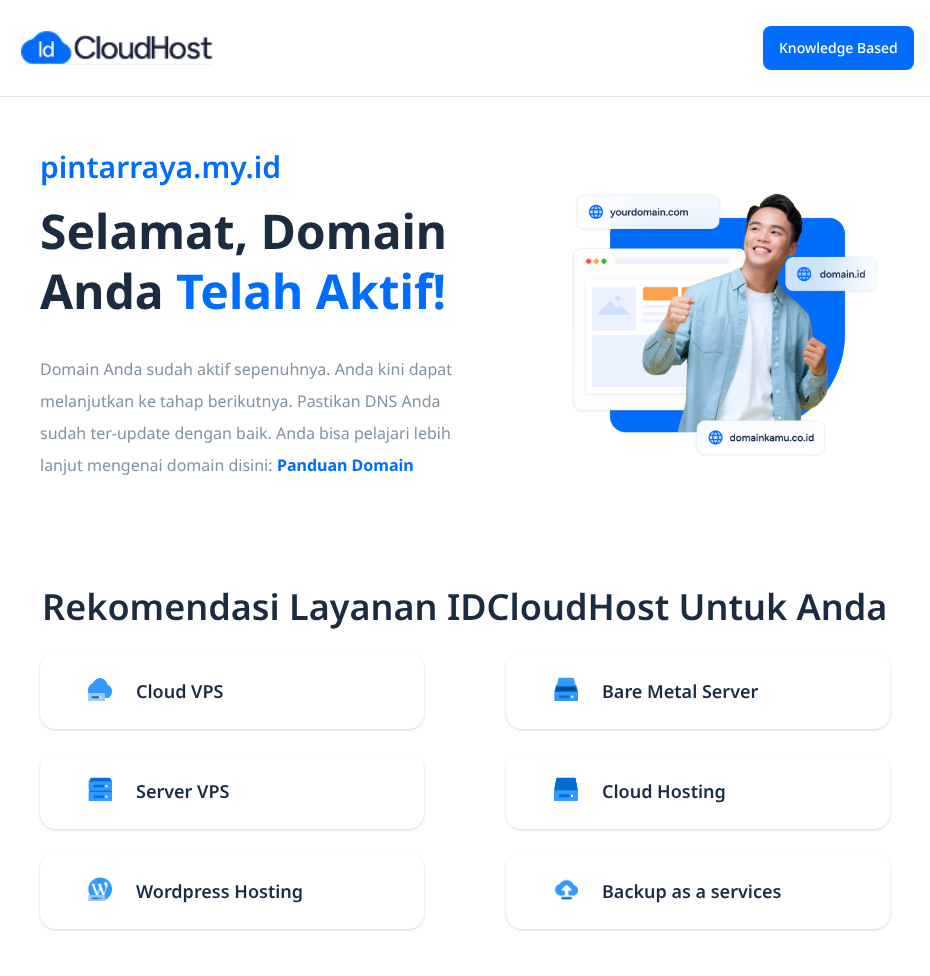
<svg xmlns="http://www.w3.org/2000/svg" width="930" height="976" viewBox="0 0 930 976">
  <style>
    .t1 { font: 500 14px Noto Sans; fill: #fff; }
    .t2 { font: 600 30px Noto Sans; fill: #016dfc; }
    .t3 { font: bold 48px Noto Sans; fill: #1b2c42; }
    .t4 { font: bold 48px Noto Sans; fill: #016dfc; }
    .t5 { font: 16px Noto Sans; fill: #8292a6; }
    .t6 { font: bold 16px Noto Sans; fill: #016dfc; }
    .t7 { font: 600 36px Noto Sans; fill: #1b2c42; }
    .t8 { font: 600 18px Noto Sans; fill: #1b2c42; }
  </style>
  <defs>
    <clipPath id="clip1"><path d="M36 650H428V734H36ZM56 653H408C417 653 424 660 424 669V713C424 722 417 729 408 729H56C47 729 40 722 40 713V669C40 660 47 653 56 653Z" clip-rule="evenodd"/></clipPath>
    <clipPath id="clip2"><path d="M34 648H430V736H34ZM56 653H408C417 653 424 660 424 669V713C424 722 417 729 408 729H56C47 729 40 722 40 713V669C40 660 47 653 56 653Z" clip-rule="evenodd"/></clipPath>
    <clipPath id="clip3"><path d="M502 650H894V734H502ZM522 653H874C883 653 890 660 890 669V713C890 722 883 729 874 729H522C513 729 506 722 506 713V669C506 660 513 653 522 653Z" clip-rule="evenodd"/></clipPath>
    <clipPath id="clip4"><path d="M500 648H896V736H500ZM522 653H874C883 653 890 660 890 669V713C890 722 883 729 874 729H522C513 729 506 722 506 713V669C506 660 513 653 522 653Z" clip-rule="evenodd"/></clipPath>
    <clipPath id="clip5"><path d="M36 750H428V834H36ZM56 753H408C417 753 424 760 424 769V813C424 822 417 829 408 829H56C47 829 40 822 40 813V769C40 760 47 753 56 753Z" clip-rule="evenodd"/></clipPath>
    <clipPath id="clip6"><path d="M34 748H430V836H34ZM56 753H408C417 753 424 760 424 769V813C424 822 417 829 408 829H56C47 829 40 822 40 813V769C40 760 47 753 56 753Z" clip-rule="evenodd"/></clipPath>
    <clipPath id="clip7"><path d="M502 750H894V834H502ZM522 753H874C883 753 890 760 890 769V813C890 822 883 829 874 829H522C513 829 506 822 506 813V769C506 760 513 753 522 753Z" clip-rule="evenodd"/></clipPath>
    <clipPath id="clip8"><path d="M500 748H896V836H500ZM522 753H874C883 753 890 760 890 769V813C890 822 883 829 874 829H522C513 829 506 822 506 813V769C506 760 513 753 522 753Z" clip-rule="evenodd"/></clipPath>
    <clipPath id="clip9"><path d="M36 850H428V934H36ZM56 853H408C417 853 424 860 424 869V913C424 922 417 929 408 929H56C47 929 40 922 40 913V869C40 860 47 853 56 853Z" clip-rule="evenodd"/></clipPath>
    <clipPath id="clip10"><path d="M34 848H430V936H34ZM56 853H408C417 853 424 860 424 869V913C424 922 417 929 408 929H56C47 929 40 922 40 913V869C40 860 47 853 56 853Z" clip-rule="evenodd"/></clipPath>
    <clipPath id="clip11"><path d="M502 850H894V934H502ZM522 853H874C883 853 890 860 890 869V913C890 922 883 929 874 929H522C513 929 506 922 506 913V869C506 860 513 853 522 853Z" clip-rule="evenodd"/></clipPath>
    <clipPath id="clip12"><path d="M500 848H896V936H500ZM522 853H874C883 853 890 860 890 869V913C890 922 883 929 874 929H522C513 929 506 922 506 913V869C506 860 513 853 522 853Z" clip-rule="evenodd"/></clipPath>
  </defs>
  <rect width="100%" height="100%" fill="#fff"/>
  <rect x="0" y="96" width="930" height="1" fill="#e5e7eb"/>
  <image x="20" y="31" width="193" height="34" href="images/1.png"/>
  <rect x="763" y="26" width="151" height="44" rx="8" fill="#016dfc"/>
  <text x="779" y="53" class="t1">Knowledge Based</text>
  <text x="40" y="178" class="t2">pintarraya.my.id</text>
  <text x="40" y="249" class="t3">Selamat, Domain</text>
  <text x="40" y="309" class="t3">Anda</text>
  <text x="176" y="309" class="t4">Telah Aktif!</text>
  <text x="40" y="375" class="t5">Domain Anda sudah aktif sepenuhnya. Anda kini dapat</text>
  <text x="40" y="407" class="t5">melanjutkan ke tahap berikutnya. Pastikan DNS Anda</text>
  <text x="40" y="439" class="t5">sudah ter-update dengan baik. Anda bisa pelajari lebih</text>
  <text x="40" y="471" class="t5">lanjut mengenai domain disini:</text>
  <text x="277" y="471" class="t6">Panduan Domain</text>
  <image x="572" y="193" width="305" height="263" href="images/2.png"/>
  <text x="42" y="620" class="t7">Rekomendasi Layanan IDCloudHost Untuk Anda</text>
  <g clip-path="url(#clip1)">
    <rect x="40" y="654" width="384" height="76" rx="16" fill="#0000000f" filter="blur(1px)"/>
  </g>
  <g clip-path="url(#clip2)">
    <rect x="40" y="654" width="384" height="76" rx="16" fill="#0000001a" filter="blur(1.5px)"/>
  </g>
  <image x="88" y="677" width="24" height="24" href="images/3.png"/>
  <text x="136" y="698" class="t8">Cloud VPS</text>
  <g clip-path="url(#clip3)">
    <rect x="506" y="654" width="384" height="76" rx="16" fill="#0000000f" filter="blur(1px)"/>
  </g>
  <g clip-path="url(#clip4)">
    <rect x="506" y="654" width="384" height="76" rx="16" fill="#0000001a" filter="blur(1.5px)"/>
  </g>
  <image x="554" y="677" width="24" height="24" href="images/4.png"/>
  <text x="602" y="698" class="t8">Bare Metal Server</text>
  <g clip-path="url(#clip5)">
    <rect x="40" y="754" width="384" height="76" rx="16" fill="#0000000f" filter="blur(1px)"/>
  </g>
  <g clip-path="url(#clip6)">
    <rect x="40" y="754" width="384" height="76" rx="16" fill="#0000001a" filter="blur(1.5px)"/>
  </g>
  <image x="88" y="777" width="24" height="24" href="images/5.png"/>
  <text x="136" y="798" class="t8">Server VPS</text>
  <g clip-path="url(#clip7)">
    <rect x="506" y="754" width="384" height="76" rx="16" fill="#0000000f" filter="blur(1px)"/>
  </g>
  <g clip-path="url(#clip8)">
    <rect x="506" y="754" width="384" height="76" rx="16" fill="#0000001a" filter="blur(1.5px)"/>
  </g>
  <image x="554" y="777" width="24" height="24" href="images/6.png"/>
  <text x="602" y="798" class="t8">Cloud Hosting</text>
  <g clip-path="url(#clip9)">
    <rect x="40" y="854" width="384" height="76" rx="16" fill="#0000000f" filter="blur(1px)"/>
  </g>
  <g clip-path="url(#clip10)">
    <rect x="40" y="854" width="384" height="76" rx="16" fill="#0000001a" filter="blur(1.5px)"/>
  </g>
  <image x="88" y="877" width="24" height="24" href="images/7.png"/>
  <text x="136" y="898" class="t8">Wordpress Hosting</text>
  <g clip-path="url(#clip11)">
    <rect x="506" y="854" width="384" height="76" rx="16" fill="#0000000f" filter="blur(1px)"/>
  </g>
  <g clip-path="url(#clip12)">
    <rect x="506" y="854" width="384" height="76" rx="16" fill="#0000001a" filter="blur(1.5px)"/>
  </g>
  <image x="554" y="879" width="24" height="21" href="images/8.png"/>
  <text x="602" y="898" class="t8">Backup as a services</text>
</svg>
